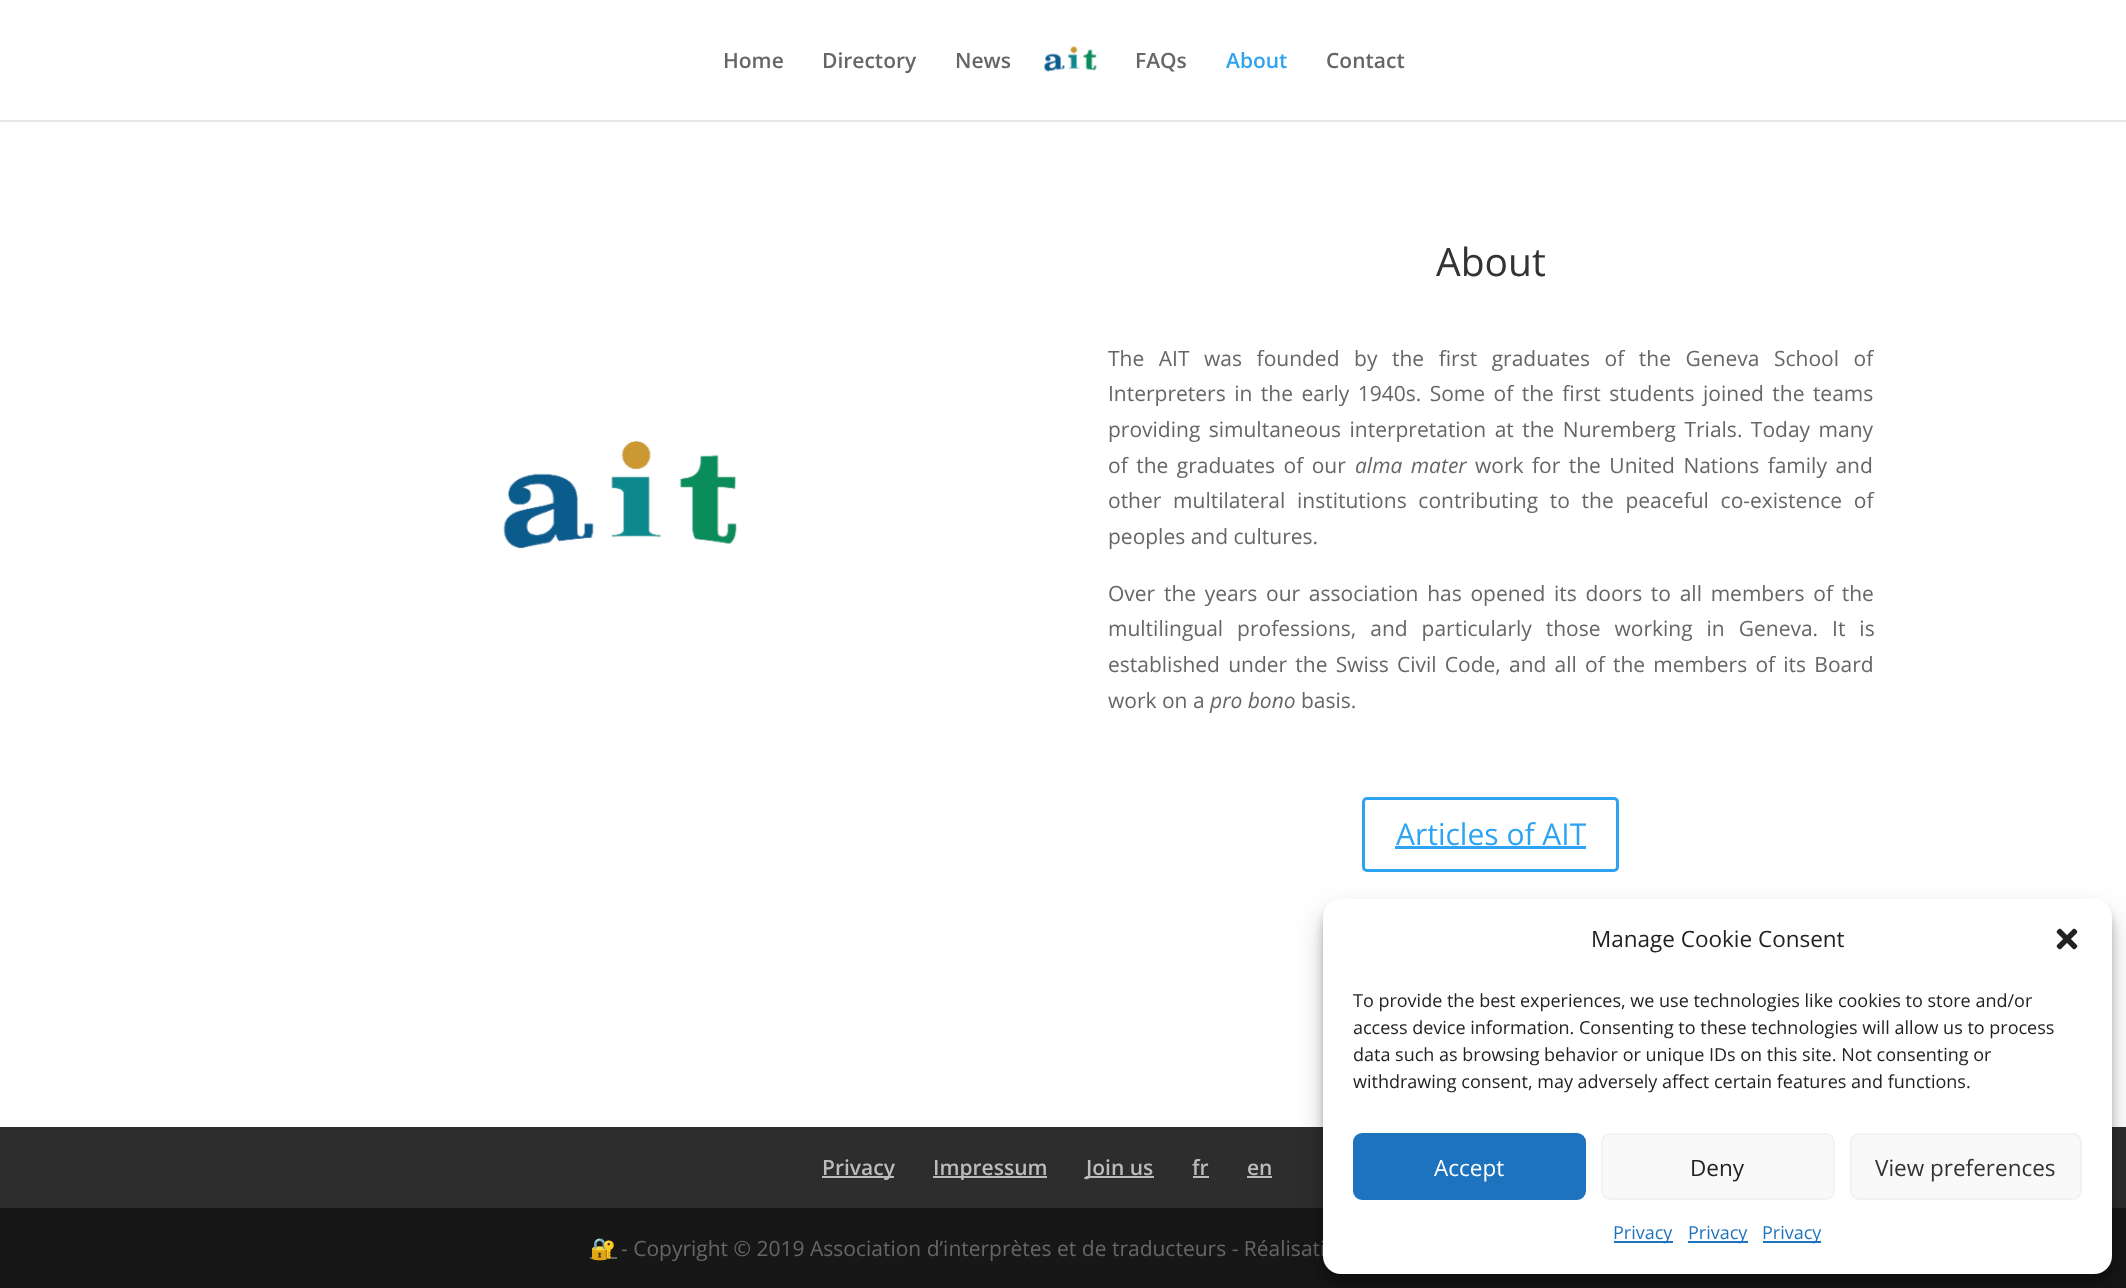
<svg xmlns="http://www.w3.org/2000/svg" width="2126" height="1288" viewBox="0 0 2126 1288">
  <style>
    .t1 { font: 600 21px Open Sans; fill: #666; }
    .t2 { font: 600 21px Open Sans; fill: #2ea3f2; }
    .t3 { font: 39px Open Sans; fill: #333; }
    .t4 { font: 21px Open Sans; fill: #666; }
    .t5 { font: italic 21px Open Sans; fill: #666; }
    .t6 { font: 30px Open Sans; fill: #2ea3f2; }
    .t7 { font: 600 21px Open Sans; fill: #bbb; }
    .t8 { font: bold 21px Noto Color Emoji; fill: #666; }
    .t9 { font: 22.5px Open Sans; fill: #222; }
    .t10 { font: 18px Open Sans; fill: #222; }
    .t11 { font: 22.5px Open Sans; fill: #fff; }
    .t12 { font: 22.5px Open Sans; fill: #333; }
    .t13 { font: 18px Open Sans; fill: #1e73be; }
  </style>
  <rect width="100%" height="100%" fill="#fff"/>
  <rect x="0" y="120" width="2126" height="2" fill="#e6e6e6"/>
  <text x="723" y="68" class="t1">Home</text>
  <text x="822" y="68" class="t1">Directory</text>
  <text x="955" y="68" class="t1">News</text>
  <image x="1044" y="46" width="53" height="26" href="images/1.png"/>
  <text x="1135" y="68" class="t1">FAQs</text>
  <text x="1226" y="68" class="t2">About</text>
  <text x="1326" y="68" class="t1">Contact</text>
  <image x="503" y="440" width="234" height="109" href="images/2.png"/>
  <text x="1436" y="276" class="t3">About</text>
  <text x="1108" y="366" word-spacing="9.1" class="t4">The AIT was founded by the first graduates of the Geneva School of</text>
  <text x="1108" y="401" word-spacing="3" class="t4">Interpreters in the early 1940s. Some of the first students joined the teams</text>
  <text x="1108" y="437" word-spacing="3" class="t4">providing simultaneous interpretation at the Nuremberg Trials. Today many</text>
  <text x="1108" y="473" word-spacing="3" class="t4">of the graduates of our</text>
  <text x="1355" y="473" word-spacing="3" class="t5">alma mater</text>
  <text x="1475" y="473" word-spacing="3" class="t4">work for the United Nations family and</text>
  <text x="1108" y="508" word-spacing="6.25" class="t4">other multilateral institutions contributing to the peaceful co-existence of</text>
  <text x="1108" y="544" class="t4">peoples and cultures.</text>
  <text x="1108" y="601" word-spacing="3.25" class="t4">Over the years our association has opened its doors to all members of the</text>
  <text x="1108" y="636" word-spacing="8.5" class="t4">multilingual professions, and particularly those working in Geneva. It is</text>
  <text x="1108" y="672" word-spacing="2.75" class="t4">established under the Swiss Civil Code, and all of the members of its Board</text>
  <text x="1108" y="708" class="t4">work on a</text>
  <text x="1210" y="708" class="t5">pro bono</text>
  <text x="1301" y="708" class="t4">basis.</text>
  <rect x="1363.5" y="798.5" width="254" height="72" rx="3.5" fill="none" stroke="#2ea3f2" stroke-width="3"/>
  <text x="1396" y="845" class="t6">Articles of AIT</text>
  <rect x="1395" y="846" width="191" height="3" fill="#2ea3f2"/>
  <rect x="0" y="1127" width="2126" height="81" fill="#2d2d2d"/>
  <rect x="822" y="1176" width="72" height="2" fill="#bbb"/>
  <text x="822" y="1175" class="t7">Privacy</text>
  <rect x="933" y="1176" width="114" height="2" fill="#bbb"/>
  <text x="933" y="1175" class="t7">Impressum</text>
  <rect x="1086" y="1176" width="68" height="2" fill="#bbb"/>
  <text x="1086" y="1175" class="t7">Join us</text>
  <text x="1192" y="1175" class="t7">fr</text>
  <rect x="1193" y="1176" width="16" height="2" fill="#bbb"/>
  <text x="1247" y="1175" class="t7">en</text>
  <rect x="1247" y="1176" width="25" height="2" fill="#bbb"/>
  <rect x="0" y="1208" width="2126" height="80" fill="#171717"/>
  <rect x="590" y="1257" width="27" height="2" fill="#666"/>
  <text x="590" y="1256" class="t8">🔐</text>
  <text x="621" y="1256" class="t4">- Copyright © 2019 Association d’interprètes et de traducteurs - Réalisati</text>
  <rect x="1323" y="908" width="789" height="375" rx="18" fill="#0000003b" filter="blur(4.5px)"/>
  <rect x="1323" y="914" width="789" height="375" rx="18" fill="#00000030" filter="blur(15px)"/>
  <rect x="1323" y="899" width="789" height="375" rx="18" fill="#fff"/>
  <text x="1591" y="947" class="t9">Manage Cookie Consent</text>
  <image x="2056" y="928" width="22" height="22" href="images/3.png"/>
  <text x="1353" y="1007" class="t10">To provide the best experiences, we use technologies like cookies to store and/or</text>
  <text x="1353" y="1034" class="t10">access device information. Consenting to these technologies will allow us to process</text>
  <text x="1353" y="1061" class="t10">data such as browsing behavior or unique IDs on this site. Not consenting or</text>
  <text x="1353" y="1088" class="t10">withdrawing consent, may adversely affect certain features and functions.</text>
  <rect x="1354" y="1134" width="231" height="65" rx="8" fill="#1e73be" stroke="#1e73be" stroke-width="2"/>
  <text x="1434" y="1176" class="t11">Accept</text>
  <rect x="1602" y="1134" width="232" height="65" rx="8" fill="#f9f9f9" stroke="#f2f2f2" stroke-width="2"/>
  <text x="1690" y="1176" class="t9">Deny</text>
  <rect x="1851" y="1134" width="230" height="65" rx="8" fill="#f9f9f9" stroke="#f2f2f2" stroke-width="2"/>
  <text x="1875" y="1176" class="t12">View preferences</text>
  <rect x="1614" y="1241" width="59" height="2" fill="#1e73be"/>
  <text x="1613" y="1239" class="t13">Privacy</text>
  <rect x="1688" y="1241" width="60" height="2" fill="#1e73be"/>
  <text x="1688" y="1239" class="t13">Privacy</text>
  <rect x="1763" y="1241" width="58" height="2" fill="#1e73be"/>
  <text x="1762" y="1239" class="t13">Privacy</text>
</svg>
